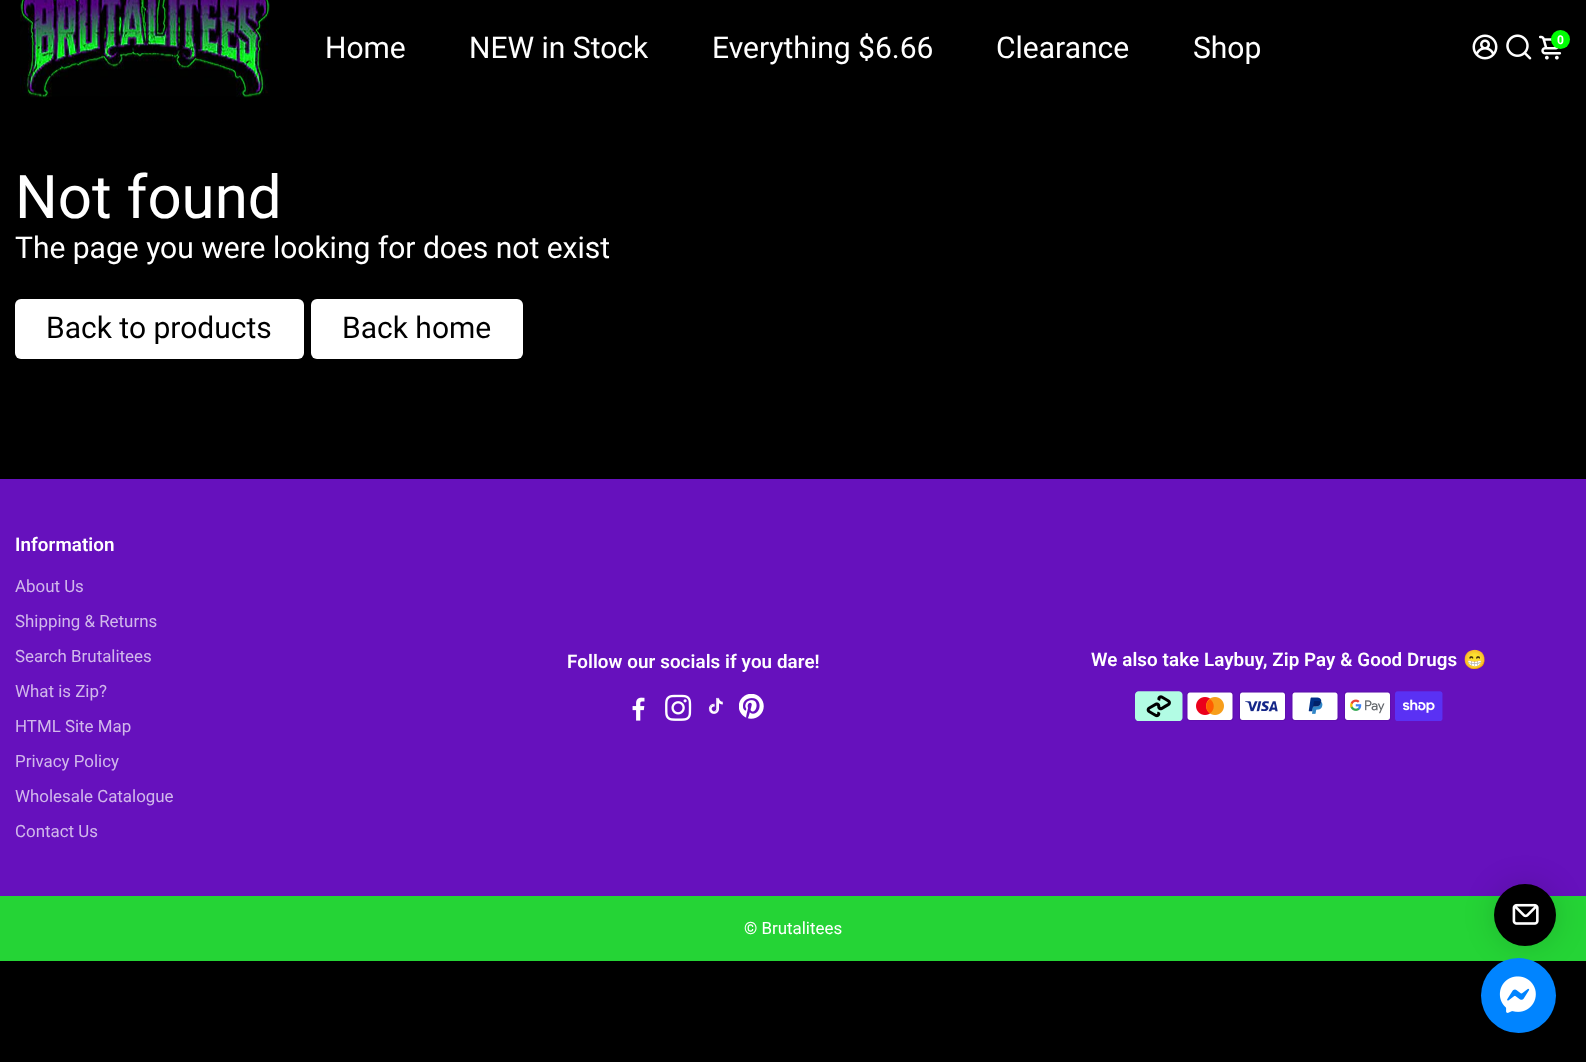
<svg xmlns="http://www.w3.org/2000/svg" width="1586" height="1062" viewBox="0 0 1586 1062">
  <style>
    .t1 { font: 30px Roboto; fill: #fff; }
    .t2 { font: bold 12px Roboto; fill: #fff; }
    .t3 { font: 60px Roboto; fill: #fff; }
    .t4 { font: 30px Roboto; fill: #000; }
    .t5 { font: 600 18.75px Roboto; letter-spacing: 0.1px; fill: #fff; }
    .t6 { font: 16.9px Roboto; fill: #d1b8eb; }
    .t7 { font: 18.75px Noto Color Emoji; letter-spacing: 0.1px; fill: #fff; }
    .t8 { font: 16.9px Roboto; fill: #fff; }
  </style>
  <rect width="100%" height="100%" fill="#000"/>
  <image x="20" y="0" width="250" height="98" href="images/1.png"/>
  <text x="325" y="58" class="t1">Home</text>
  <text x="469" y="58" class="t1">NEW in Stock</text>
  <text x="712" y="58" class="t1">Everything $6.66</text>
  <text x="996" y="58" class="t1">Clearance</text>
  <text x="1193" y="58" class="t1">Shop</text>
  <image x="1472" y="34" width="26" height="26" href="images/2.png"/>
  <image x="1506" y="34" width="26" height="26" href="images/3.png"/>
  <image x="1539" y="35" width="23" height="25" href="images/4.png"/>
  <circle cx="1560.5" cy="39.5" r="9.5" fill="#00ff03"/>
  <text x="1557" y="44" class="t2">0</text>
  <text x="15" y="218" class="t3">Not found</text>
  <text x="15" y="258" class="t1">The page you were looking for does not exist</text>
  <rect x="15" y="299" width="289" height="60" rx="6" fill="#fff"/>
  <text x="46" y="338" class="t4">Back to products</text>
  <rect x="311" y="299" width="212" height="60" rx="6" fill="#fff"/>
  <text x="342" y="338" class="t4">Back home</text>
  <rect x="0" y="479" width="1586" height="417" fill="#6611bd"/>
  <text x="15" y="551" class="t5">Information</text>
  <text x="15" y="592" class="t6">About Us</text>
  <text x="15" y="627" class="t6">Shipping &amp; Returns</text>
  <text x="15" y="662" class="t6">Search Brutalitees</text>
  <text x="15" y="697" class="t6">What is Zip?</text>
  <text x="15" y="732" class="t6">HTML Site Map</text>
  <text x="15" y="767" class="t6">Privacy Policy</text>
  <text x="15" y="802" class="t6">Wholesale Catalogue</text>
  <text x="15" y="837" class="t6">Contact Us</text>
  <text x="567" y="668" class="t5">Follow our socials if you dare!</text>
  <image x="632" y="697" width="13" height="24" href="images/5.png"/>
  <image x="665" y="694" width="27" height="27" href="images/6.png"/>
  <image x="708" y="697" width="15" height="17" href="images/7.png"/>
  <image x="739" y="694" width="25" height="25" href="images/8.png"/>
  <text x="1091" y="666" class="t5">We also take Laybuy, Zip Pay &amp; Good Drugs</text>
  <text x="1463" y="666" class="t7">😁</text>
  <image x="1135" y="691" width="48" height="30" href="images/9.png"/>
  <image x="1186" y="691" width="48" height="30" href="images/10.png"/>
  <image x="1239" y="691" width="47" height="30" href="images/11.png"/>
  <image x="1291" y="691" width="48" height="30" href="images/12.png"/>
  <image x="1344" y="691" width="47" height="30" href="images/13.png"/>
  <image x="1395" y="691" width="48" height="30" href="images/14.png"/>
  <rect x="0" y="896" width="1586" height="65" fill="#25d436"/>
  <text x="744" y="934" class="t8">© Brutalitees</text>
  <rect x="1494" y="884" width="62" height="62" rx="31" fill="#00000026" filter="blur(15.5px)"/>
  <circle cx="1525" cy="915" r="31" fill="#000"/>
  <image x="1512" y="903" width="27" height="22" href="images/15.png"/>
  <circle cx="1518.5" cy="995.5" r="37.5" fill="#0084ff"/>
  <image x="1499" y="976" width="37" height="37" href="images/16.png"/>
</svg>
